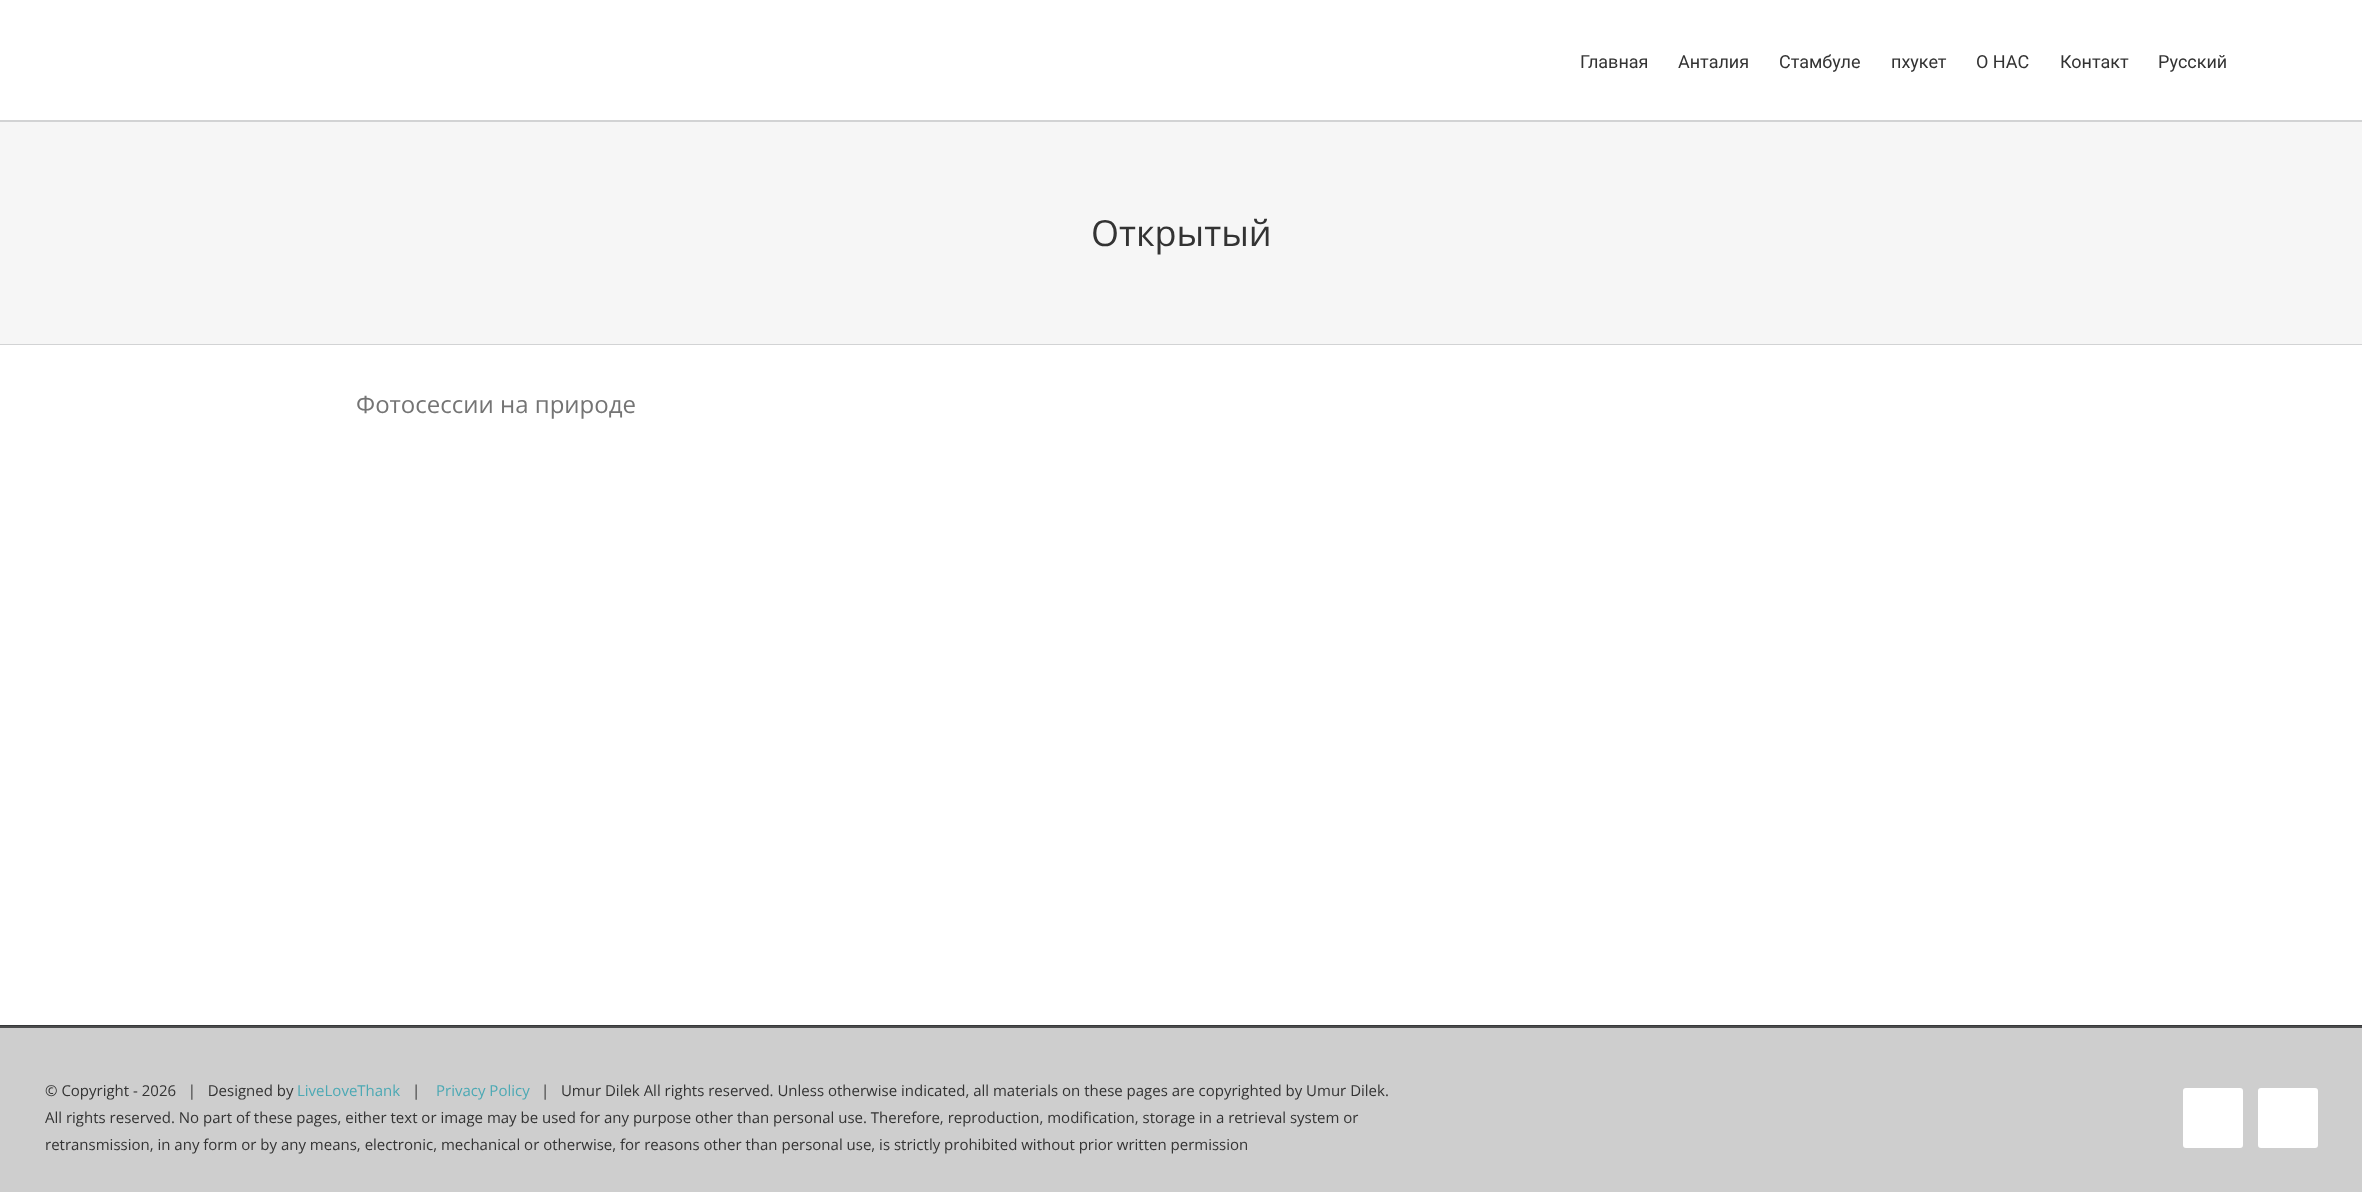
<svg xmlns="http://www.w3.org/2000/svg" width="2362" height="1192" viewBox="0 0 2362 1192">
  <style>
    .t1 { font: 18px Roboto; fill: #333; }
    .t2 { font: 36px Open Sans; fill: #333; }
    .t3 { font: 24px Open Sans; fill: #747474; }
    .t4 { font: 15px Open Sans; fill: #333; }
    .t5 { font: 15px Open Sans; fill: #4ca9b4; }
  </style>
  <rect width="100%" height="100%" fill="#fff"/>
  <text x="1580" y="68" class="t1">Главная</text>
  <text x="1678" y="68" class="t1">Анталия</text>
  <text x="1779" y="68" class="t1">Стамбуле</text>
  <text x="1891" y="68" class="t1">пхукет</text>
  <text x="1976" y="68" class="t1">О НАС</text>
  <text x="2060" y="68" class="t1">Контакт</text>
  <text x="2158" y="68" class="t1">Русский</text>
  <rect x="0" y="122" width="2362" height="222" fill="#f6f6f6"/>
  <rect x="0" y="120" width="2362" height="2" fill="#d2d3d4"/>
  <rect x="0" y="344" width="2362" height="1" fill="#d2d3d4"/>
  <text x="1091" y="246" class="t2">Открытый</text>
  <text x="356" y="413" class="t3">Фотосессии на природе</text>
  <rect x="0" y="1025" width="2362" height="1" fill="#363839"/>
  <rect x="0" y="1028" width="2362" height="164" fill="#cecece"/>
  <rect x="0" y="1026" width="2362" height="2" fill="#4b4c4d"/>
  <text x="45" y="1096" class="t4" xml:space="preserve">© Copyright - 2026   |   Designed by</text>
  <text x="297" y="1096" class="t5">LiveLoveThank</text>
  <text x="412" y="1096" class="t4">|</text>
  <text x="436" y="1096" class="t5">Privacy Policy</text>
  <text x="541" y="1096" class="t4" xml:space="preserve">|   Umur Dilek All rights reserved. Unless otherwise indicated, all materials on these pages are copyrighted by Umur Dilek.</text>
  <text x="45" y="1123" class="t4">All rights reserved. No part of these pages, either text or image may be used for any purpose other than personal use. Therefore, reproduction, modification, storage in a retrieval system or</text>
  <text x="45" y="1150" class="t4">retransmission, in any form or by any means, electronic, mechanical or otherwise, for reasons other than personal use, is strictly prohibited without prior written permission</text>
  <rect x="2184" y="1089" width="58" height="58" rx="2" fill="#fff" stroke="#fff" stroke-width="2"/>
  <rect x="2259" y="1089" width="58" height="58" rx="2" fill="#fff" stroke="#fff" stroke-width="2"/>
</svg>
